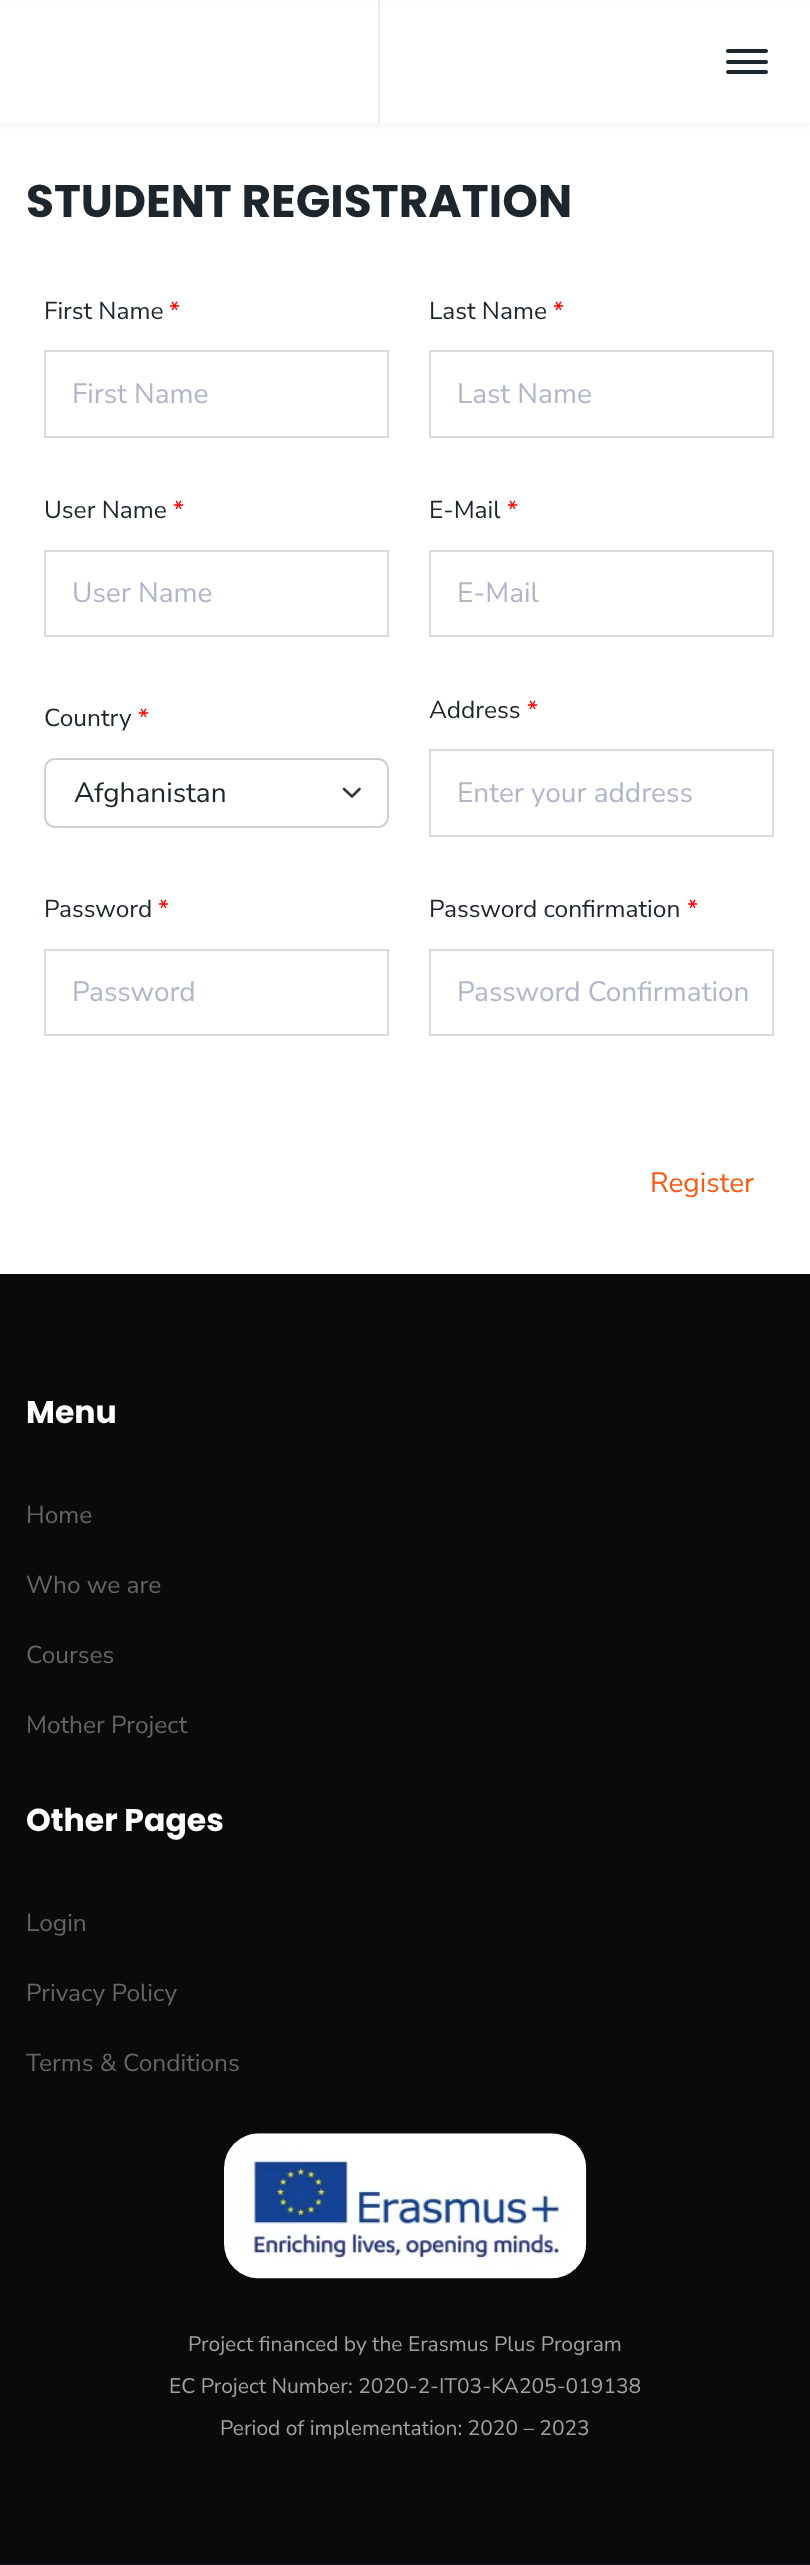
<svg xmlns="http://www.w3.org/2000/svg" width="810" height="2565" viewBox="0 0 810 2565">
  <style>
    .t1 { font: bold 45.5px Poppins; fill: #1d252d; }
    .t2 { font: 24.5px Nunito Sans; fill: #1d252d; }
    .t3 { font: 24.5px Nunito Sans; fill: #f00; }
    .t4 { font: 28px Nunito Sans; fill: #b0b6c8; }
    .t5 { font: 28px Nunito Sans; fill: #1d252d; }
    .t6 { font: 28px Nunito Sans; fill: #fa5711; }
    .t7 { font: bold 31.5px Poppins; fill: #fff; }
    .t8 { font: 24.5px Nunito Sans; fill: #656565; }
    .t9 { font: 21px Nunito Sans; fill: #a2a2a2; }
  </style>
  <rect width="100%" height="100%" fill="#fff"/>
  <rect x="0" y="4" width="810" height="122" fill="#0000000a" filter="blur(3.5px)"/>
  <rect x="0" y="2" width="810" height="121" fill="#fff"/>
  <rect x="378" y="0" width="2" height="123" fill="#edeeee"/>
  <rect x="726" y="60" width="42" height="4" rx="2" fill="#1d252d"/>
  <rect x="726" y="49" width="42" height="4" rx="2" fill="#1d252d"/>
  <rect x="726" y="70" width="42" height="4" rx="2" fill="#1d252d"/>
  <text x="26" y="217" class="t1">STUDENT REGISTRATION</text>
  <text x="44" y="319" class="t2">First Name</text>
  <text x="169" y="319" class="t3">*</text>
  <rect x="45" y="351" width="343" height="86" fill="none" stroke="#dbdbdb" stroke-width="2"/>
  <text x="72" y="403" class="t4">First Name</text>
  <text x="429" y="319" class="t2">Last Name</text>
  <text x="553" y="319" class="t3">*</text>
  <rect x="430" y="351" width="343" height="86" fill="none" stroke="#dbdbdb" stroke-width="2"/>
  <text x="457" y="403" class="t4">Last Name</text>
  <text x="44" y="518" class="t2">User Name</text>
  <text x="173" y="518" class="t3">*</text>
  <rect x="45" y="551" width="343" height="85" fill="none" stroke="#dbdbdb" stroke-width="2"/>
  <text x="72" y="602" class="t4">User Name</text>
  <text x="429" y="518" class="t2">E-Mail</text>
  <text x="507" y="518" class="t3">*</text>
  <rect x="430" y="551" width="343" height="85" fill="none" stroke="#dbdbdb" stroke-width="2"/>
  <text x="457" y="602" class="t4">E-Mail</text>
  <text x="44" y="726" class="t2">Country</text>
  <text x="138" y="726" class="t3">*</text>
  <path d="M344 789L352 796.5L359.5 789" fill="none" stroke="#343a40" stroke-width="2.6" stroke-linecap="round" stroke-linejoin="round"/>
  <rect x="45" y="759" width="343" height="68" rx="10" fill="none" stroke="#cdcfd5" stroke-width="2"/>
  <text x="74" y="802" class="t5">Afghanistan</text>
  <text x="429" y="718" class="t2">Address</text>
  <text x="527" y="718" class="t3">*</text>
  <rect x="430" y="750" width="343" height="86" fill="none" stroke="#dbdbdb" stroke-width="2"/>
  <text x="457" y="802" class="t4">Enter your address</text>
  <text x="44" y="917" class="t2">Password</text>
  <text x="158" y="917" class="t3">*</text>
  <rect x="45" y="950" width="343" height="85" fill="none" stroke="#dbdbdb" stroke-width="2"/>
  <text x="72" y="1001" class="t4">Password</text>
  <text x="429" y="917" class="t2">Password confirmation</text>
  <text x="687" y="917" class="t3">*</text>
  <rect x="430" y="950" width="343" height="85" fill="none" stroke="#dbdbdb" stroke-width="2"/>
  <text x="457" y="1001" class="t4">Password Confirmation</text>
  <text x="650" y="1192" class="t6">Register</text>
  <rect x="0" y="1274" width="810" height="1290" fill="#0a0a0a"/>
  <text x="26" y="1423" class="t7">Menu</text>
  <text x="26" y="1523" class="t8">Home</text>
  <text x="26" y="1593" class="t8">Who we are</text>
  <text x="26" y="1663" class="t8">Courses</text>
  <text x="26" y="1733" class="t8">Mother Project</text>
  <text x="26" y="1831" class="t7">Other Pages</text>
  <text x="26" y="1931" class="t8">Login</text>
  <text x="26" y="2001" class="t8">Privacy Policy</text>
  <text x="26" y="2071" class="t8">Terms &amp; Conditions</text>
  <image x="224" y="2133" width="363" height="146" href="images/1.png"/>
  <text x="188" y="2351" class="t9">Project financed by the Erasmus Plus Program</text>
  <text x="169" y="2393" class="t9">EC Project Number: 2020-2-IT03-KA205-019138</text>
  <text x="220" y="2435" class="t9">Period of implementation: 2020 – 2023</text>
  <rect x="0" y="2564" width="810" height="1" fill="#11171d"/>
</svg>
